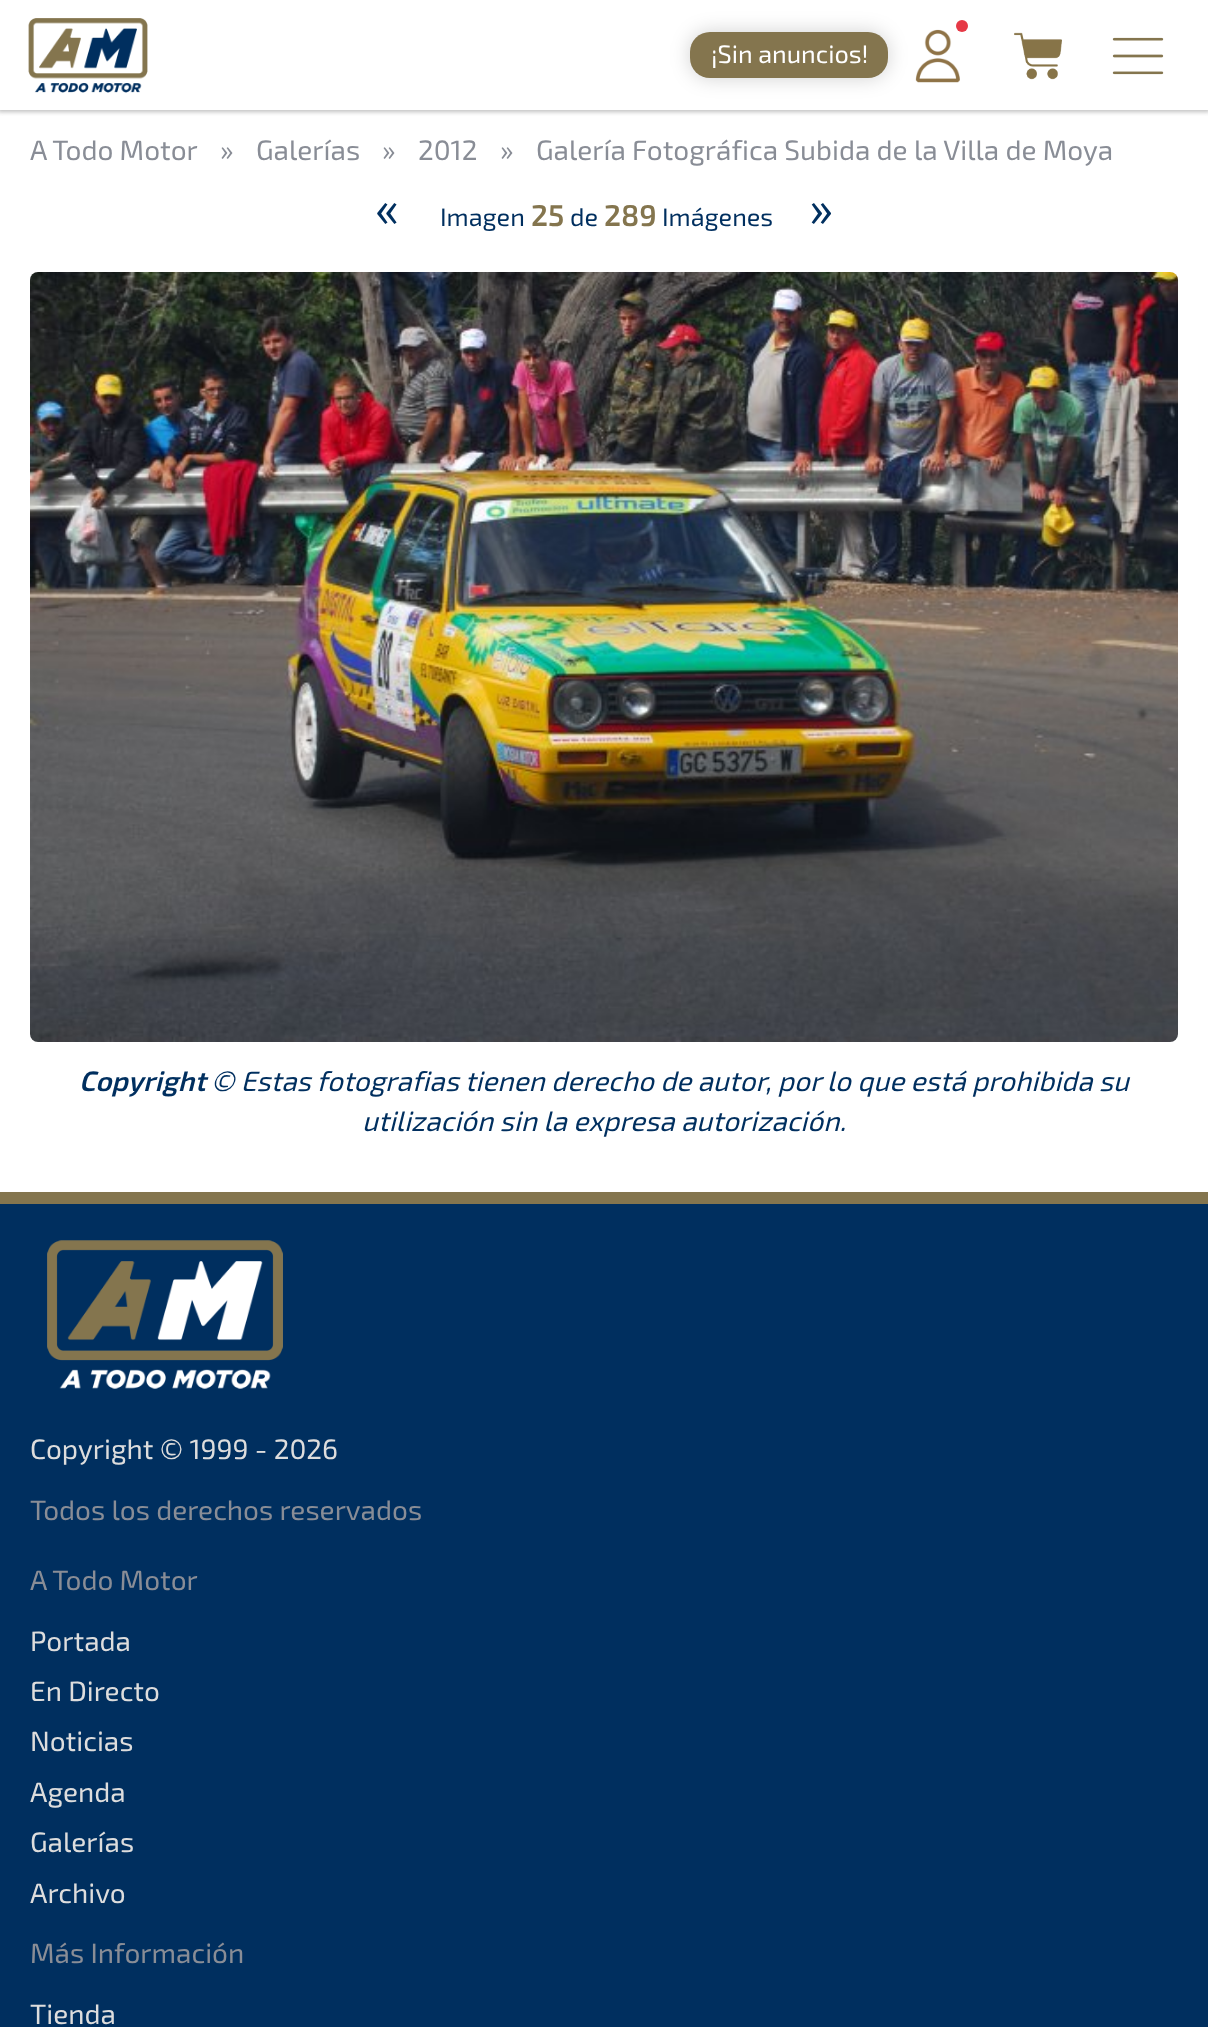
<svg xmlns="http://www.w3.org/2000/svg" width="1208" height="2027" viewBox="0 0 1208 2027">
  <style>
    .t1 { font: 25.25px 'Exo 2'; fill: #fff; }
    .t2 { font: 28px 'Exo 2'; fill: #898d96; }
    .t3 { font: 50px 'Exo 2'; fill: #002f5f; }
    .t4 { font: 25.25px 'Exo 2'; fill: #002f5f; }
    .t5 { font: 600 30px 'Exo 2'; fill: #84754e; }
    .t6 { font: italic 600 28px 'Exo 2'; fill: #002f5f; }
    .t7 { font: italic 28px 'Exo 2'; fill: #002f5f; }
    .t8 { font: 28px 'Exo 2'; fill: #ddd; }
  </style>
  <defs>
    <clipPath id="clip1"><rect x="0" y="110" width="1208" height="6"/></clipPath>
  </defs>
  <rect width="100%" height="100%" fill="#fff"/>
  <g clip-path="url(#clip1)">
    <rect x="-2" y="-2" width="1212" height="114" fill="#c0c0c0" filter="blur(2px)"/>
  </g>
  <image x="28" y="18" width="120" height="75" href="images/1.png"/>
  <rect x="690" y="32" width="198" height="46" rx="20" fill="#0000002e" filter="blur(10px)"/>
  <rect x="690" y="32" width="198" height="46" rx="20" fill="#84754e"/>
  <text x="711" y="63" class="t1">¡Sin anuncios!</text>
  <image x="915" y="29" width="45" height="54" href="images/2.png"/>
  <circle cx="962" cy="26" r="6" fill="#e63946"/>
  <image x="1014" y="32" width="48" height="48" href="images/3.png"/>
  <image x="1112" y="37" width="52" height="38" href="images/4.png"/>
  <text x="30" y="160" class="t2">A Todo Motor</text>
  <text x="220" y="160" class="t2">»</text>
  <text x="256" y="160" class="t2">Galerías</text>
  <text x="382" y="160" class="t2">»</text>
  <text x="418" y="160" class="t2">2012</text>
  <text x="500" y="160" class="t2">»</text>
  <text x="536" y="160" class="t2">Galería Fotográfica Subida de la Villa de Moya</text>
  <text x="375" y="226" class="t3">«</text>
  <text x="440" y="226" class="t4">Imagen</text>
  <text x="531" y="226" class="t5">25</text>
  <text x="570" y="226" class="t4">de</text>
  <text x="604" y="226" class="t5">289</text>
  <text x="662" y="226" class="t4">Imágenes</text>
  <text x="809" y="226" class="t3">»</text>
  <image x="30" y="272" width="1148" height="770" href="images/5.png"/>
  <text x="79" y="1091" class="t6">Copyright</text>
  <text x="211" y="1091" class="t7">© Estas fotografias tienen derecho de autor, por lo que está prohibida su</text>
  <text x="362" y="1131" class="t7">utilización sin la expresa autorización.</text>
  <rect x="0" y="1204" width="1208" height="823" fill="#002f5f"/>
  <rect x="0" y="1192" width="1208" height="12" fill="#84754e"/>
  <image x="47" y="1240" width="236" height="149" href="images/6.png"/>
  <text x="30" y="1459" class="t8">Copyright © 1999 - 2026</text>
  <text x="30" y="1520" class="t2">Todos los derechos reservados</text>
  <text x="30" y="1590" class="t2">A Todo Motor</text>
  <text x="30" y="1651" class="t8">Portada</text>
  <text x="30" y="1701" class="t8">En Directo</text>
  <text x="30" y="1751" class="t8">Noticias</text>
  <text x="30" y="1802" class="t8">Agenda</text>
  <text x="30" y="1852" class="t8">Galerías</text>
  <text x="30" y="1903" class="t8">Archivo</text>
  <text x="30" y="1963" class="t2">Más Información</text>
  <text x="30" y="2024" class="t8">Tienda</text>
</svg>
